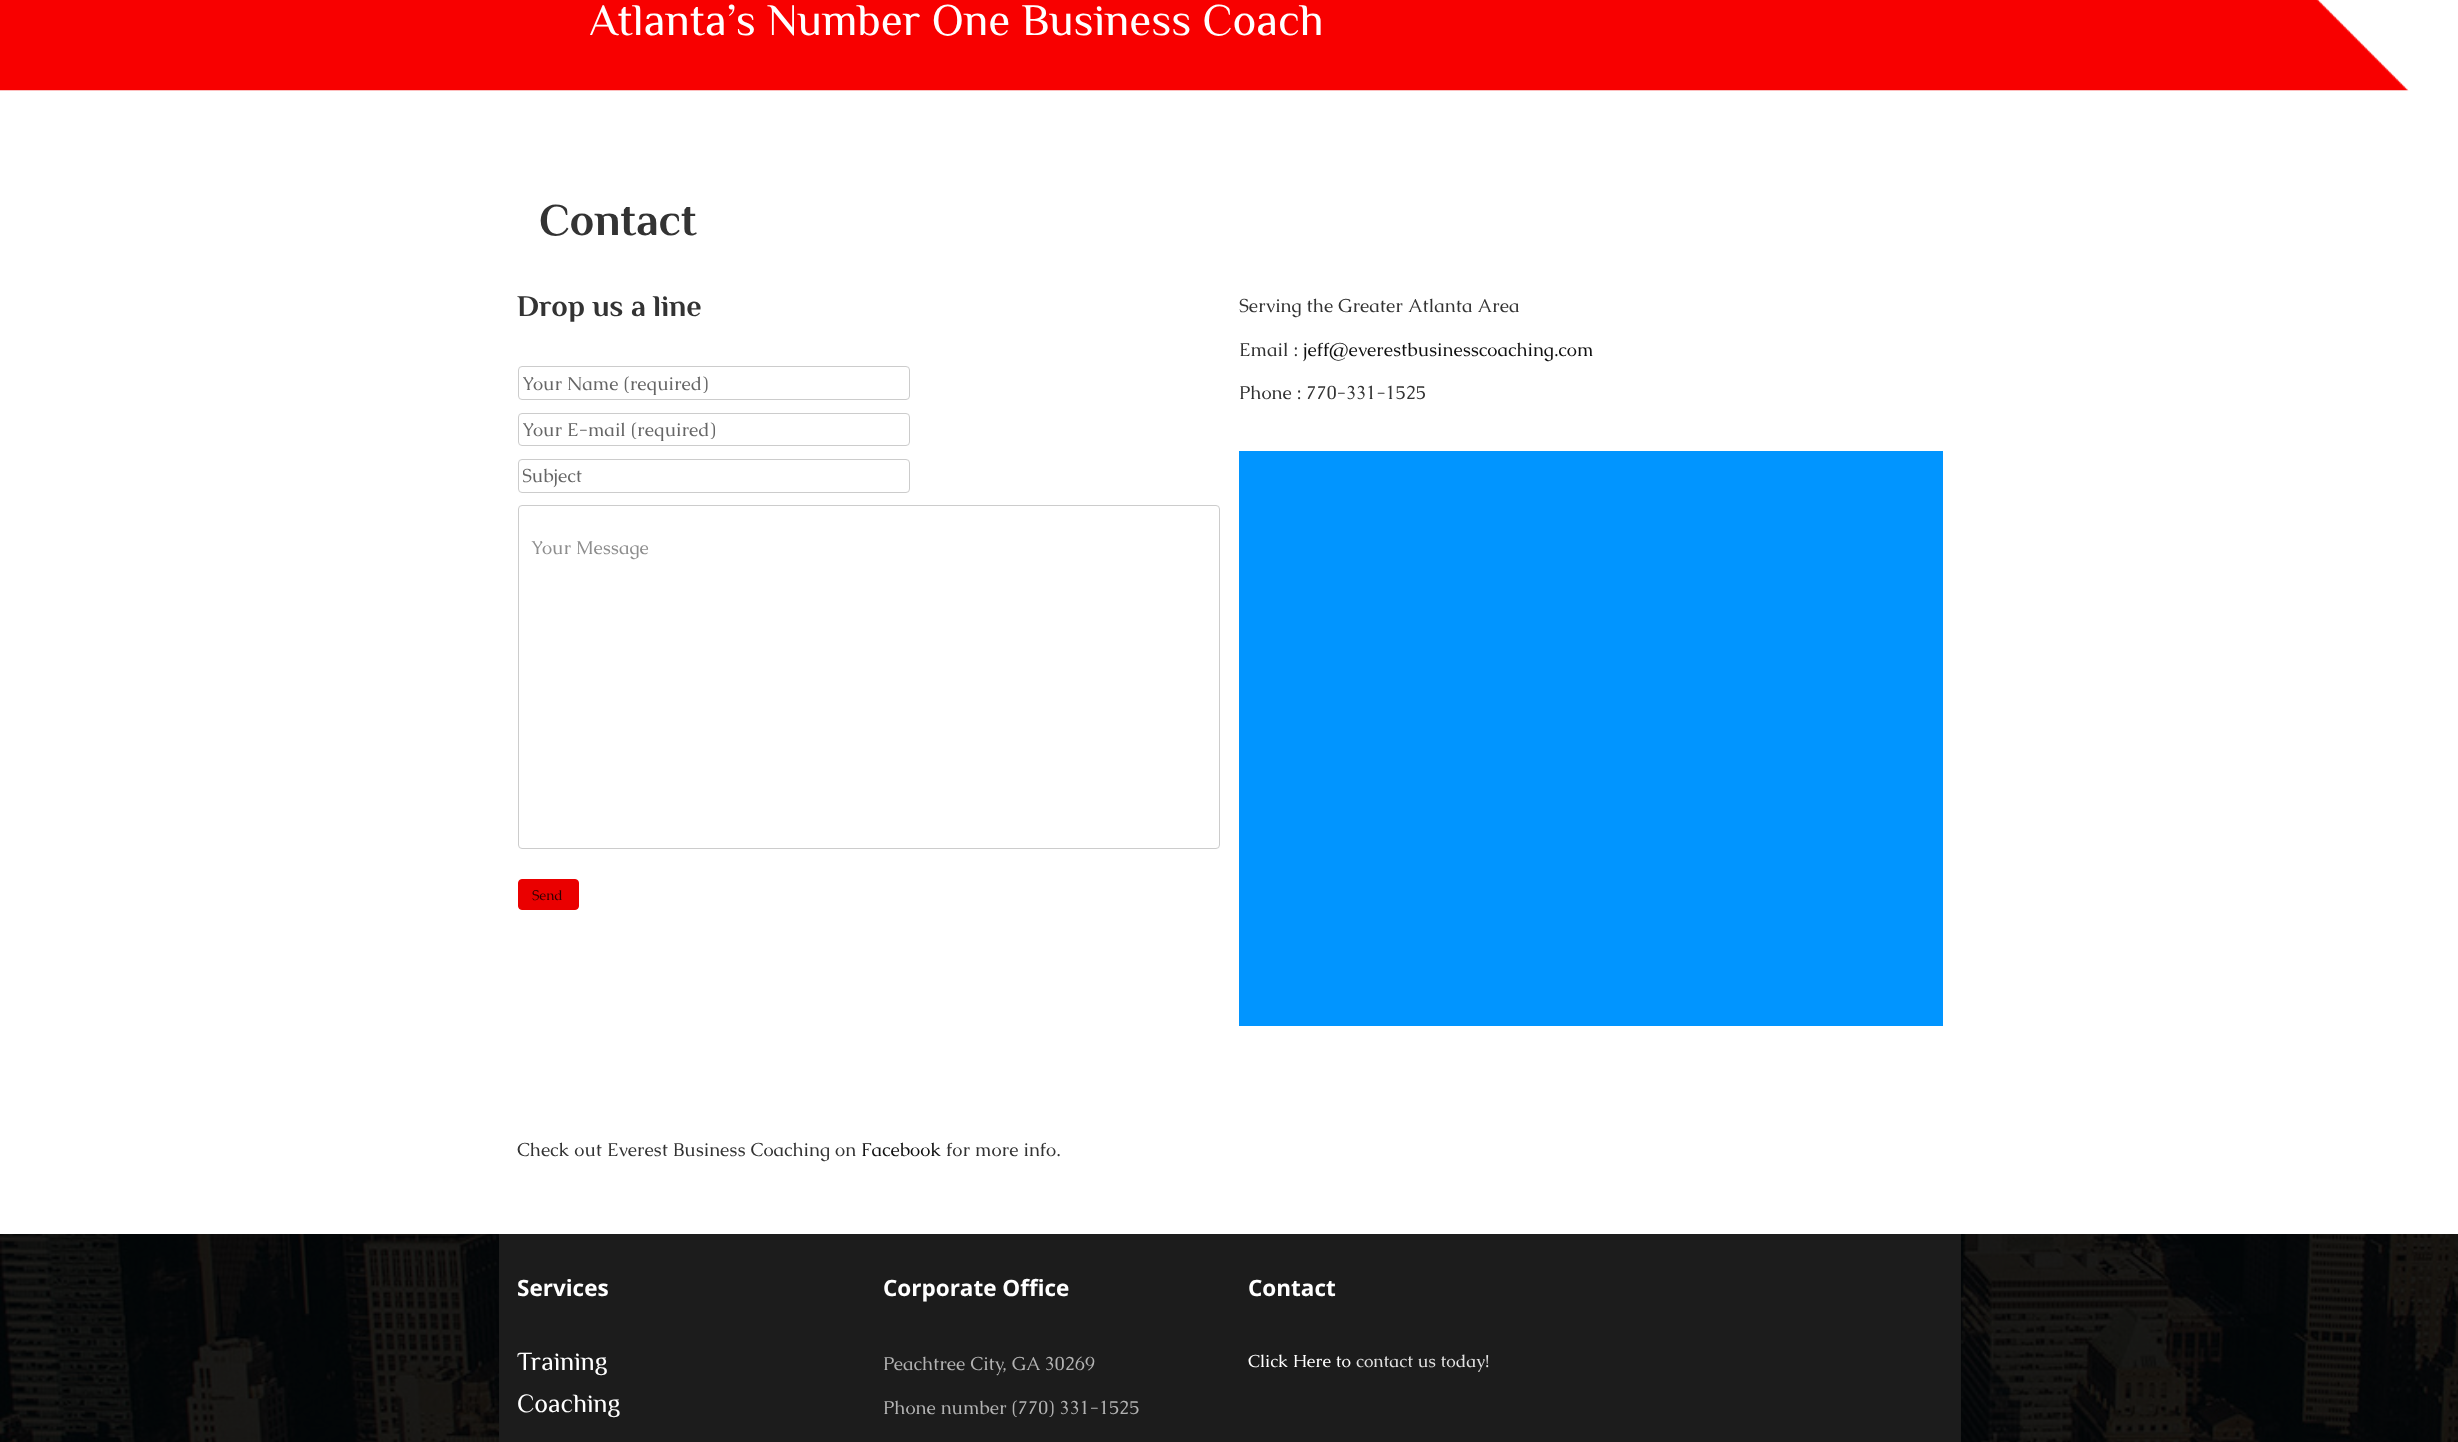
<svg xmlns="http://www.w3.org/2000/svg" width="2458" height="1442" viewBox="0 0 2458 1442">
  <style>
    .t1 { font: 45px Philosopher; fill: #fff; }
    .t2 { font: bold 45px Philosopher; fill: #333; }
    .t3 { font: bold 30px Philosopher; fill: #333; }
    .t4 { font: 18.75px Caudex; fill: #666; }
    .t5 { font: 18.75px Caudex; fill: #8e8e8e; }
    .t6 { font: 14px Caudex; fill: #2f0000; }
    .t7 { font: 18.75px Caudex; fill: #333; }
    .t8 { font: 18.75px Caudex; fill: #111; }
    .t9 { font: bold 22.5px Open Sans; fill: #fff; }
    .t10 { font: 26px Philosopher; fill: #fff; }
    .t11 { font: 18.75px Caudex; fill: #b2b2b2; }
    .t12 { font: 17.5px Caudex; fill: #fff; }
    .t13 { font: 17.5px Caudex; fill: #e2e2e2; }
  </style>
  <defs>
    <clipPath id="clip1"><rect x="523" y="371" width="382" height="24"/></clipPath>
    <clipPath id="clip2"><rect x="523" y="418" width="382" height="23"/></clipPath>
    <clipPath id="clip3"><rect x="523" y="464" width="382" height="24"/></clipPath>
  </defs>
  <rect width="100%" height="100%" fill="#fff"/>
  <image x="0" y="0" width="2409" height="91" href="images/1.png"/>
  <text x="589" y="35" class="t1">Atlanta’s Number One Business Coach</text>
  <text x="539" y="235" class="t2">Contact</text>
  <text x="517" y="316" class="t3">Drop us a line</text>
  <rect x="518.5" y="366.5" width="391" height="33" rx="3.5" fill="none" stroke="#ccc"/>
  <g clip-path="url(#clip1)">
    <text x="522" y="390" class="t4">Your Name (required)</text>
  </g>
  <rect x="518.5" y="413.5" width="391" height="32" rx="3.5" fill="none" stroke="#ccc"/>
  <g clip-path="url(#clip2)">
    <text x="522" y="436" class="t4">Your E-mail (required)</text>
  </g>
  <rect x="518.5" y="459.5" width="391" height="33" rx="3.5" fill="none" stroke="#ccc"/>
  <g clip-path="url(#clip3)">
    <text x="522" y="482" class="t4">Subject</text>
  </g>
  <rect x="518.5" y="505.5" width="701" height="343" rx="3.5" fill="none" stroke="#ccc"/>
  <text x="531" y="554" class="t5">Your Message</text>
  <rect x="518.5" y="879.5" width="60" height="30" rx="3.5" fill="#ea0000" stroke="#ea0000"/>
  <text x="532" y="900" class="t6">Send</text>
  <text x="1239" y="312" class="t7">Serving the Greater Atlanta Area</text>
  <text x="1239" y="356" class="t7">Email :</text>
  <text x="1303" y="356" class="t8">jeff@everestbusinesscoaching.com</text>
  <text x="1239" y="399" class="t7">Phone : 770-331-1525</text>
  <rect x="1239" y="451" width="704" height="575" fill="#0195ff"/>
  <text x="517" y="1156" class="t7">Check out Everest Business Coaching on</text>
  <text x="861" y="1156" class="t8">Facebook</text>
  <text x="946" y="1156" class="t7">for more info.</text>
  <image x="0" y="1234" width="2458" height="208" href="images/2.png"/>
  <rect x="499" y="1234" width="1462" height="208" fill="#1c1c1c"/>
  <text x="517" y="1296" class="t9">Services</text>
  <text x="517" y="1370" class="t10">Training</text>
  <text x="517" y="1412" class="t10">Coaching</text>
  <text x="883" y="1296" class="t9">Corporate Office</text>
  <text x="883" y="1370" class="t11">Peachtree City, GA 30269</text>
  <text x="883" y="1414" class="t11">Phone number (770) 331-1525</text>
  <text x="1248" y="1296" class="t9">Contact</text>
  <text x="1248" y="1367" class="t12">Click Here to</text>
  <text x="1356" y="1367" class="t13">contact us today!</text>
</svg>
